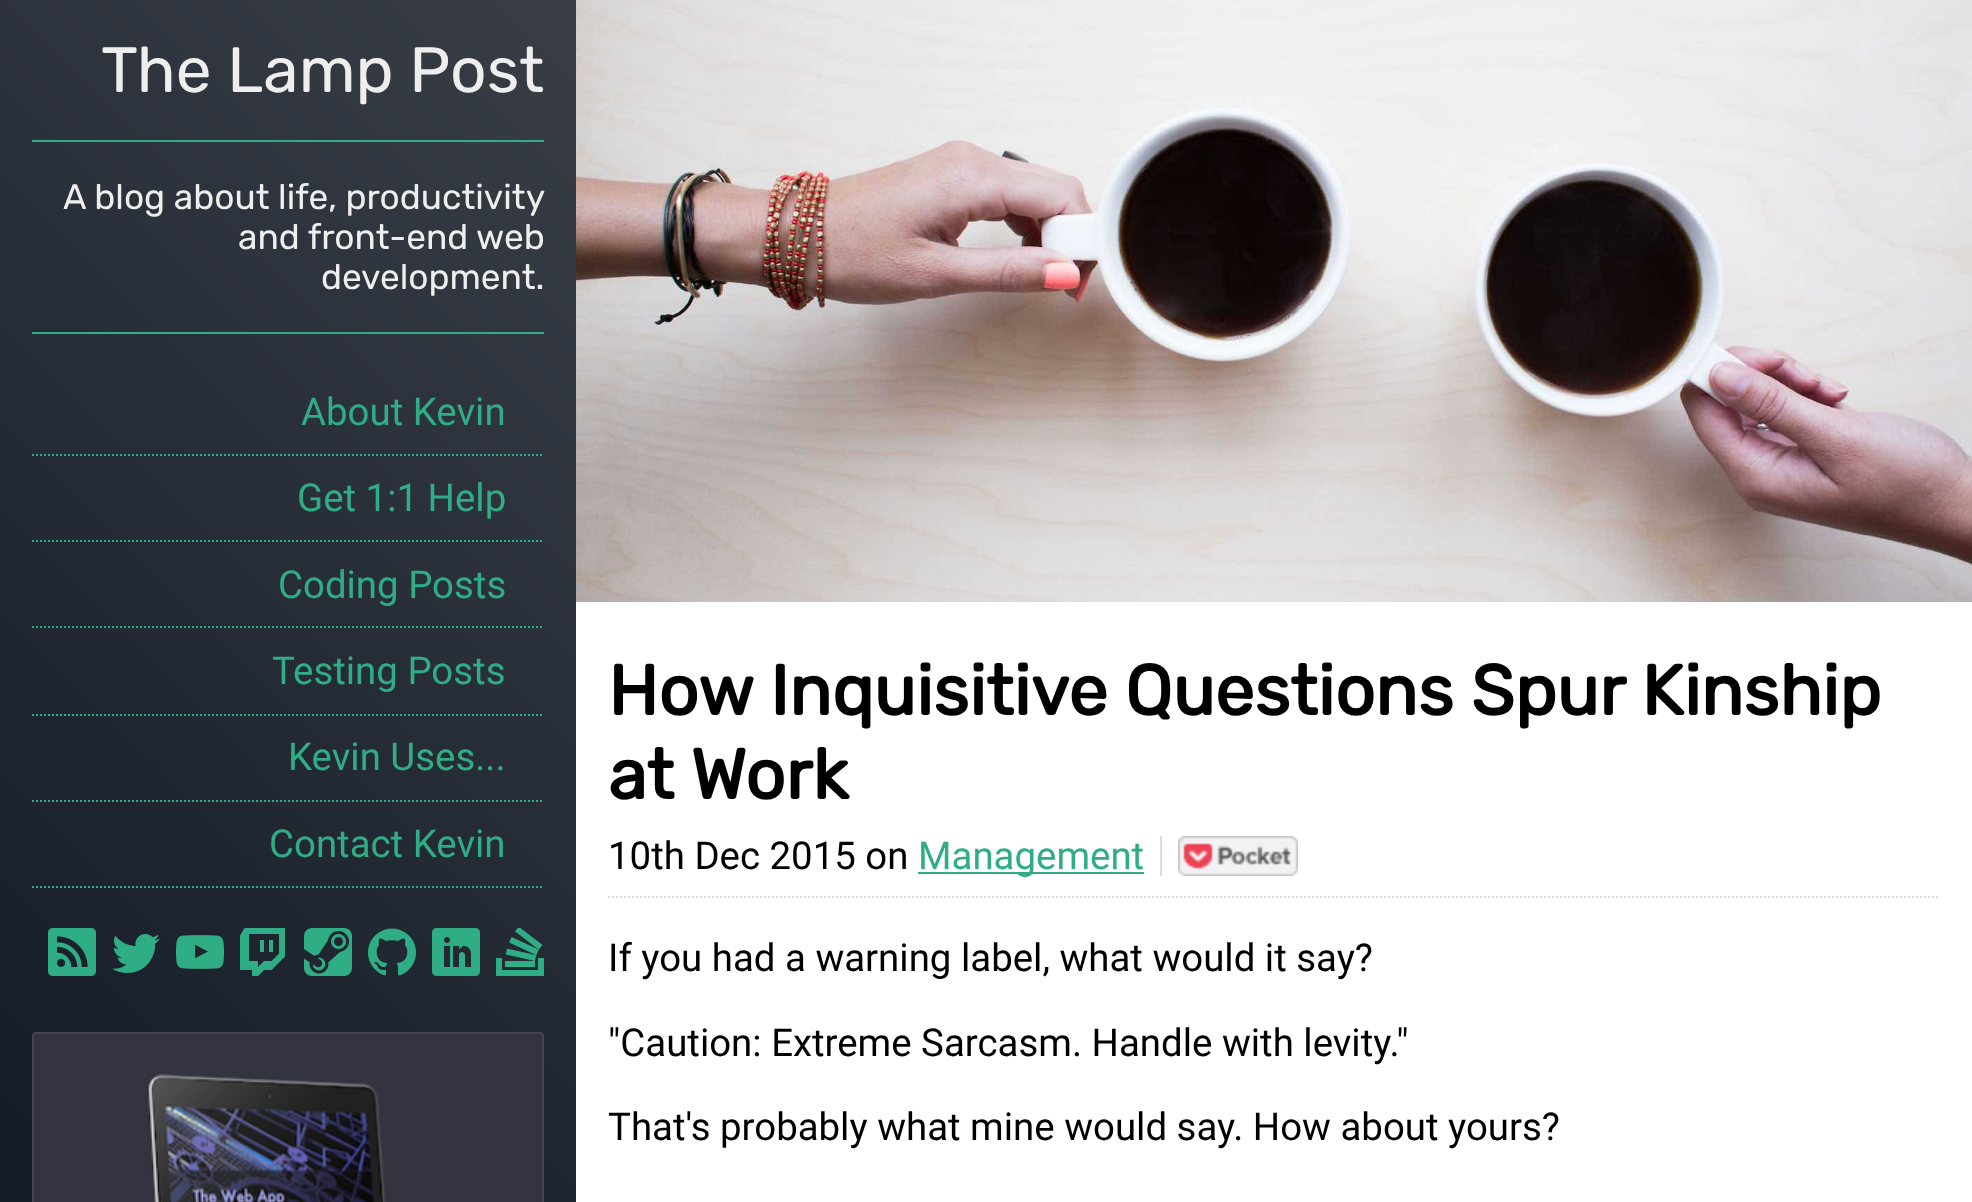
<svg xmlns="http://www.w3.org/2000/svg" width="1972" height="1202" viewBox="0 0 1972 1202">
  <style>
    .t1 { font: 300 64px Rubik; fill: #eee; }
    .t2 { font: 300 35.25px Rubik; fill: #eee; }
    .t3 { font: 38.4px Roboto; fill: #2fad84; }
    .t4 { font: bold 70.4px Rubik; fill: #000; }
    .t5 { font: 38.4px Roboto; fill: #000; }
  </style>
  <defs>
    <linearGradient id="g1" gradientUnits="userSpaceOnUse" x1="-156" y1="1046" x2="733" y2="157"><stop offset="0" stop-color="#141b27"/><stop offset="1" stop-color="#393e46"/></linearGradient>
  </defs>
  <rect width="100%" height="100%" fill="#fff"/>
  <rect x="0" y="0" width="576" height="1202" fill="url(#g1)"/>
  <rect x="32" y="140" width="512" height="2" fill="#2fad84"/>
  <text x="101" y="92" class="t1">The Lamp Post</text>
  <rect x="32" y="332" width="512" height="2" fill="#2fad84"/>
  <text x="63" y="209" class="t2">A blog about life, productivity</text>
  <text x="238" y="249" class="t2">and front-end web</text>
  <text x="321" y="289" class="t2">development.</text>
  <path d="M32 455H544" fill="none" stroke="#2fad84" stroke-width="2" stroke-dasharray="2 2"/>
  <text x="301" y="425" class="t3">About Kevin</text>
  <path d="M32 541H544" fill="none" stroke="#2fad84" stroke-width="2" stroke-dasharray="2 2"/>
  <text x="297" y="511" class="t3">Get 1:1 Help</text>
  <path d="M32 627H544" fill="none" stroke="#2fad84" stroke-width="2" stroke-dasharray="2 2"/>
  <text x="278" y="598" class="t3">Coding Posts</text>
  <path d="M32 715H544" fill="none" stroke="#2fad84" stroke-width="2" stroke-dasharray="2 2"/>
  <text x="272" y="684" class="t3">Testing Posts</text>
  <path d="M32 801H544" fill="none" stroke="#2fad84" stroke-width="2" stroke-dasharray="2 2"/>
  <text x="288" y="770" class="t3">Kevin Uses...</text>
  <path d="M32 887H544" fill="none" stroke="#2fad84" stroke-width="2" stroke-dasharray="2 2"/>
  <text x="269" y="857" class="t3">Contact Kevin</text>
  <image x="48" y="928" width="48" height="48" href="images/1.png"/>
  <image x="112" y="934" width="48" height="39" href="images/2.png"/>
  <image x="176" y="935" width="48" height="34" href="images/3.png"/>
  <image x="240" y="928" width="45" height="48" href="images/4.png"/>
  <image x="304" y="928" width="48" height="48" href="images/5.png"/>
  <image x="368" y="928" width="48" height="48" href="images/6.png"/>
  <image x="432" y="928" width="48" height="48" href="images/7.png"/>
  <image x="496" y="928" width="48" height="48" href="images/8.png"/>
  <path d="M36 1032H540C542 1032 544 1034 544 1036V1202H32V1036C32 1034 34 1032 36 1032Z" fill="#343440"/>
  <rect x="33" y="1033" width="510" height="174" rx="3" fill="none" stroke="#445" stroke-width="2"/>
  <image x="147" y="1074" width="239" height="128" href="images/9.png"/>
  <image x="576" y="0" width="1396" height="602" href="images/10.png"/>
  <text x="608" y="715" class="t4">How Inquisitive Questions Spur Kinship</text>
  <text x="608" y="799" class="t4">at Work</text>
  <path d="M608 897H1940" fill="none" stroke="#ddd" stroke-width="2" stroke-dasharray="2 2"/>
  <text x="608" y="869" class="t5">10th Dec 2015 on</text>
  <rect x="918" y="872" width="226" height="2" fill="#2fad84"/>
  <text x="918" y="869" class="t3">Management</text>
  <image x="1178" y="836" width="120" height="40" href="images/11.png"/>
  <rect x="1160" y="836" width="2" height="40" fill="#ddd"/>
  <text x="608" y="971" class="t5">If you had a warning label, what would it say?</text>
  <text x="608" y="1056" class="t5">"Caution: Extreme Sarcasm. Handle with levity."</text>
  <text x="608" y="1140" class="t5">That's probably what mine would say. How about yours?</text>
</svg>
